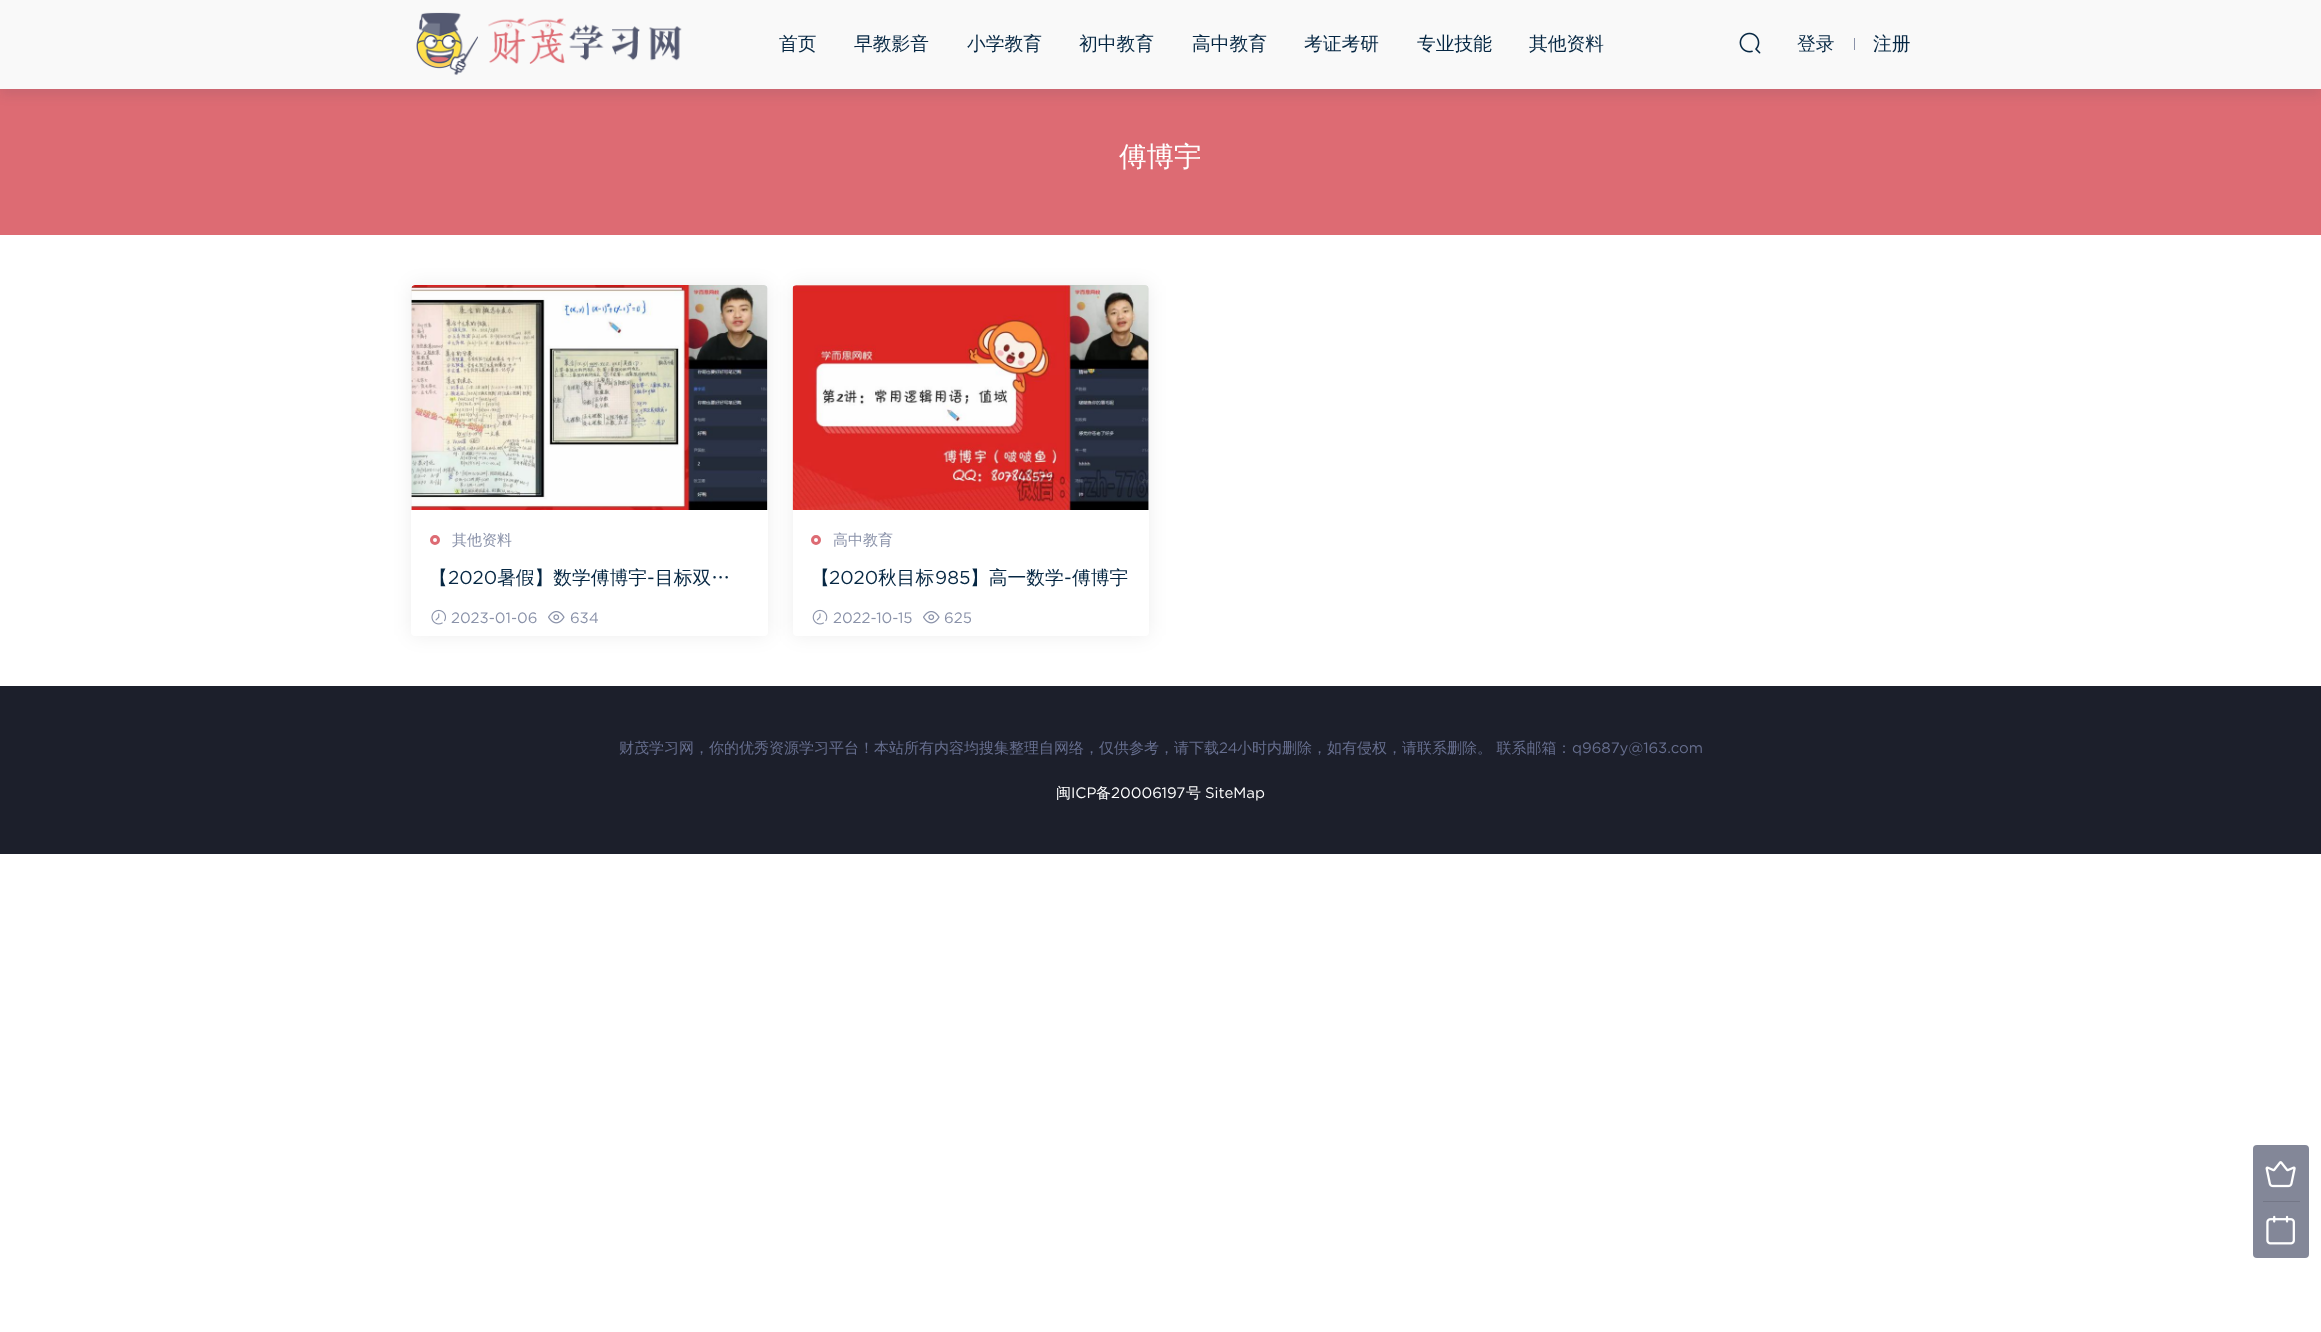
<svg xmlns="http://www.w3.org/2000/svg" width="2321" height="1332" viewBox="0 0 2321 1332">
  <style>
    .t1 { font: 500 18.75px WenQuanYi Zen Hei; fill: #062743; }
    .t2 { font: 500 27.5px WenQuanYi Zen Hei; fill: #fff; }
    .t3 { font: 500 15px WenQuanYi Zen Hei; fill: #8a92a9; }
    .t4 { font: 18.75px Gotham; fill: #062743; }
    .t5 { font: 15px Gotham; fill: #8a92a9; }
    .t6 { font: 500 15px WenQuanYi Zen Hei; fill: #666e8e; }
    .t7 { font: 15px Gotham; fill: #666e8e; }
    .t8 { font: 500 15px WenQuanYi Zen Hei; fill: #fff; }
    .t9 { font: 15px Gotham; fill: #fff; }
  </style>
  <rect width="100%" height="100%" fill="#fff"/>
  <rect x="0" y="89" width="2321" height="146" fill="#dd6b73"/>
  <rect x="0" y="6" width="2321" height="89" fill="#113a5d1a" filter="blur(6px)"/>
  <rect x="0" y="0" width="2321" height="89" fill="#f9f9f9"/>
  <image x="416" y="12" width="266" height="63" href="images/1.png"/>
  <text x="779" y="50" class="t1">首页</text>
  <text x="854" y="50" class="t1">早教影音</text>
  <text x="967" y="50" class="t1">小学教育</text>
  <text x="1079" y="50" class="t1">初中教育</text>
  <text x="1192" y="50" class="t1">高中教育</text>
  <text x="1304" y="50" class="t1">考证考研</text>
  <text x="1417" y="50" class="t1">专业技能</text>
  <text x="1529" y="50" class="t1">其他资料</text>
  <image x="1739" y="32" width="22" height="22" href="images/2.png"/>
  <text x="1797" y="50" class="t1">登录</text>
  <rect x="1854" y="38" width="1" height="12" fill="#8a92a9"/>
  <text x="1873" y="50" class="t1">注册</text>
  <text x="1119" y="166" class="t2">傅博宇</text>
  <rect x="411" y="285" width="357" height="351" rx="4" fill="#00000012" filter="blur(9.5px)"/>
  <rect x="411" y="285" width="357" height="351" rx="4" fill="#fff"/>
  <path d="M415 285H764C766 285 768 287 768 289V510H411V289C411 287 413 285 415 285Z" fill="#f0f0f0"/>
  <image x="411" y="285" width="357" height="225" href="images/3.png"/>
  <circle cx="435" cy="540" r="3.5" fill="none" stroke="#dd6b73" stroke-width="3"/>
  <text x="452" y="545" class="t3">其他资料</text>
  <text x="429" y="584" class="t1">【</text>
  <text x="448" y="584" class="t4">2020</text>
  <text x="497" y="584" class="t1">暑假】数学傅博宇</text>
  <text x="647" y="584" class="t4">-</text>
  <text x="655" y="584" class="t1">目标双…</text>
  <image x="431" y="609" width="15" height="16" href="images/4.png"/>
  <text x="451" y="623" class="t5">2023-01-06</text>
  <image x="548" y="611" width="17" height="13" href="images/5.png"/>
  <text x="570" y="623" class="t5">634</text>
  <rect x="793" y="285" width="356" height="351" rx="4" fill="#00000012" filter="blur(9.5px)"/>
  <rect x="793" y="285" width="356" height="351" rx="4" fill="#fff"/>
  <path d="M797 285H1145C1147 285 1149 287 1149 289V510H793V289C793 287 795 285 797 285Z" fill="#f0f0f0"/>
  <image x="792" y="285" width="357" height="225" href="images/6.png"/>
  <circle cx="816" cy="540" r="3.5" fill="none" stroke="#dd6b73" stroke-width="3"/>
  <text x="833" y="545" class="t3">高中教育</text>
  <text x="811" y="584" class="t1">【</text>
  <text x="829" y="584" class="t4">2020</text>
  <text x="878" y="584" class="t1">秋目标</text>
  <text x="935" y="584" class="t4">985</text>
  <text x="970" y="584" class="t1">】高一数学</text>
  <text x="1064" y="584" class="t4">-</text>
  <text x="1072" y="584" class="t1">傅博宇</text>
  <image x="812" y="609" width="16" height="16" href="images/7.png"/>
  <text x="833" y="623" class="t5">2022-10-15</text>
  <image x="923" y="611" width="17" height="13" href="images/5.png"/>
  <text x="944" y="623" class="t5">625</text>
  <rect x="0" y="686" width="2321" height="168" fill="#1c1f2b"/>
  <text x="619" y="753" class="t6">财茂学习网，你的优秀资源学习平台！本站所有内容均搜集整理自网络，仅供参考，请下载</text>
  <text x="1219" y="753" class="t7">24</text>
  <text x="1237" y="753" class="t6">小时内删除，如有侵权，请联系删除。 联系邮箱：</text>
  <text x="1572" y="753" class="t7">q9687y@163.com</text>
  <text x="1056" y="798" class="t8">闽</text>
  <text x="1071" y="798" class="t9">ICP</text>
  <text x="1096" y="798" class="t8">备</text>
  <text x="1111" y="798" class="t9">20006197</text>
  <text x="1186" y="798" class="t8">号</text>
  <text x="1205" y="798" class="t9">SiteMap</text>
  <rect x="2253" y="1145" width="56" height="113" rx="4" fill="#838798"/>
  <image x="2265" y="1161" width="31" height="27" href="images/8.png"/>
  <rect x="2263" y="1201" width="37" height="1" fill="#747787"/>
  <image x="2266" y="1215" width="29" height="30" href="images/9.png"/>
</svg>
